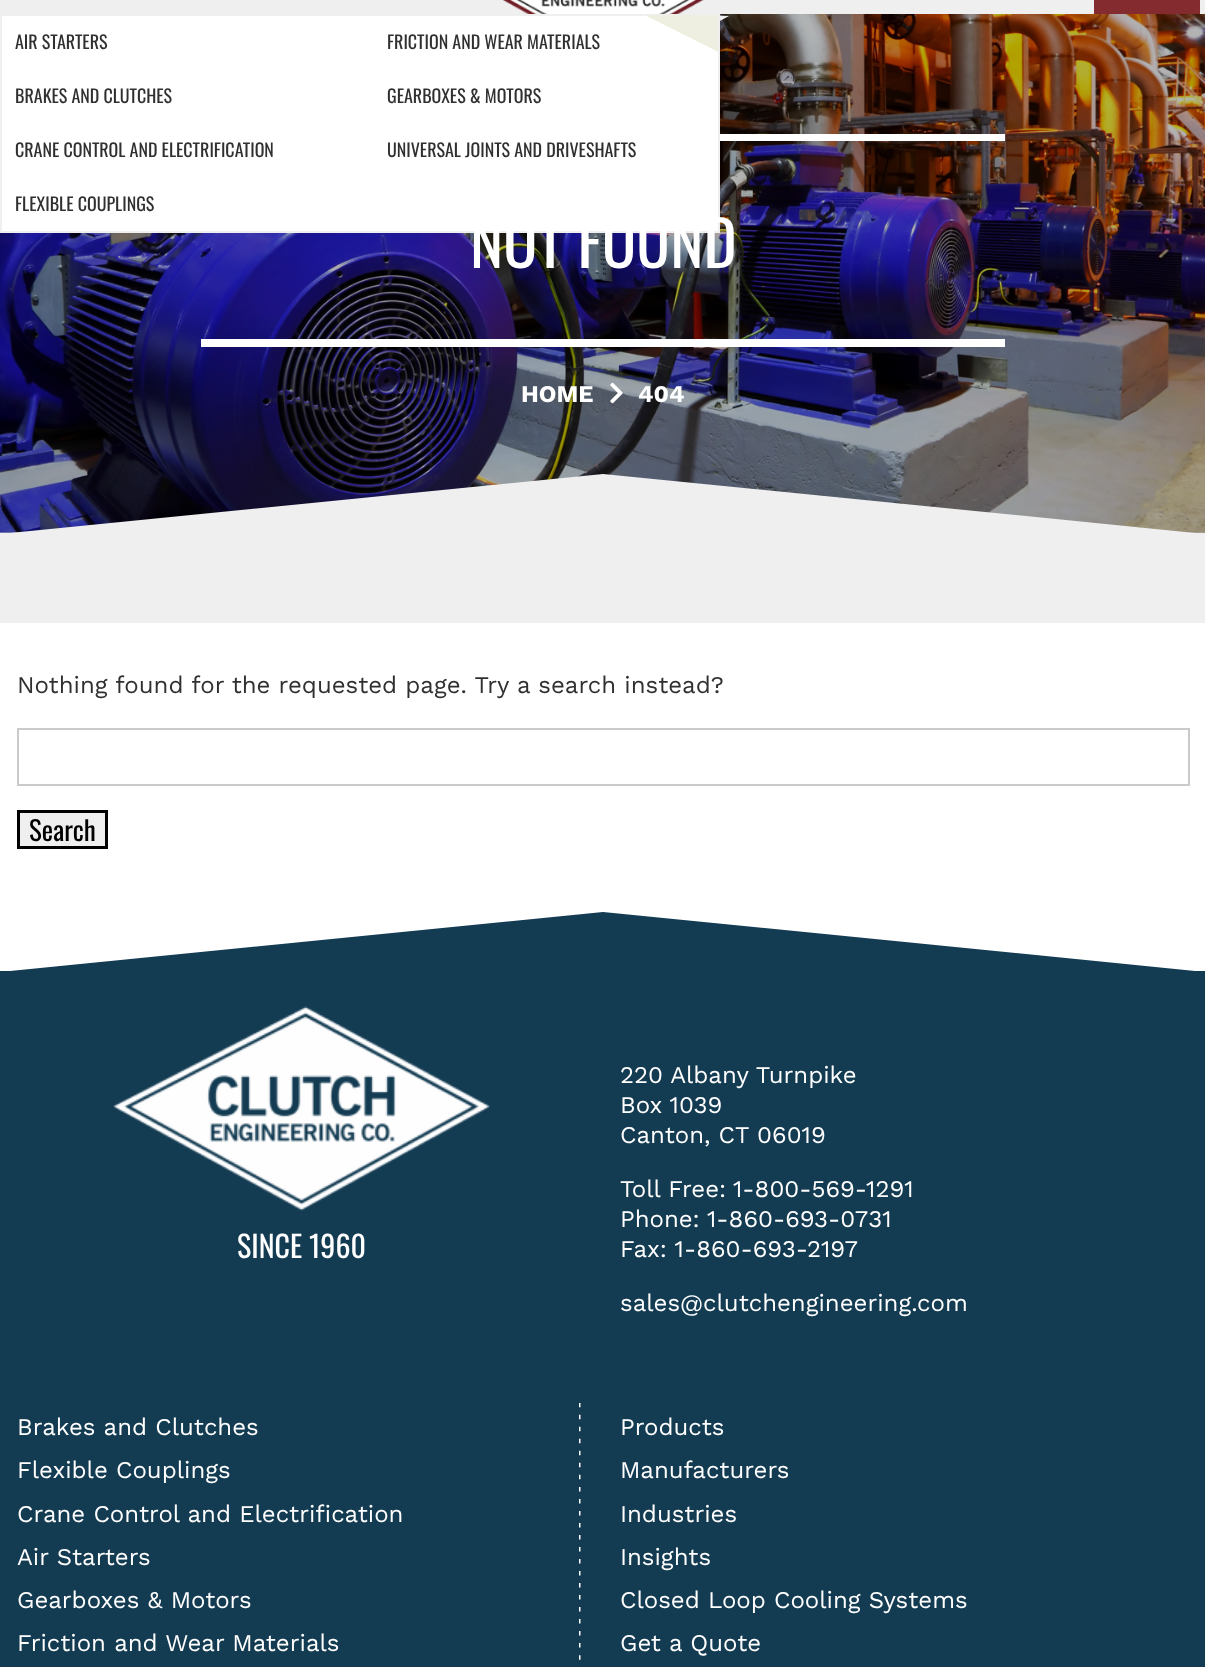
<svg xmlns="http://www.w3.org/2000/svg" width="1205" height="1667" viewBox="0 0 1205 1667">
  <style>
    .t1 { font: 18px Oswald; fill: #303030; }
    .t2 { font: 63px Oswald; fill: #fff; }
    .t3 { font: bold 24px Work Sans; fill: #fff; }
    .t4 { font: 24px Work Sans; fill: #303030; }
    .t5 { font: 27px Oswald; fill: #000; }
    .t6 { font: 30px Oswald; fill: #fff; }
    .t7 { font: 24px Work Sans; fill: #fff; }
  </style>
  <rect width="100%" height="100%" fill="#fff"/>
  <rect x="0" y="532" width="1205" height="1" fill="#b3b3b3"/>
  <rect x="0" y="0" width="1205" height="14" fill="#efefef"/>
  <image x="0" y="14" width="1205" height="519" href="images/2.png"/>
  <path d="M603 85L477 16V4L729 16Z" fill="#efefef"/>
  <image x="502" y="0" width="202" height="14" href="images/1.png"/>
  <rect x="1094" y="0" width="106" height="14" fill="#842b30"/>
  <rect x="1" y="15" width="718" height="217" fill="#fff" stroke="#efefef" stroke-width="2"/>
  <text x="15" y="49" class="t1">AIR STARTERS</text>
  <text x="387" y="49" class="t1">FRICTION AND WEAR MATERIALS</text>
  <path d="M644 15H718V52Z" fill="#efefe1"/>
  <path d="M644 52V15L718 52Z" fill="#fff"/>
  <text x="15" y="103" class="t1">BRAKES AND CLUTCHES</text>
  <text x="387" y="103" class="t1">GEARBOXES &amp; MOTORS</text>
  <text x="15" y="157" class="t1">CRANE CONTROL AND ELECTRIFICATION</text>
  <text x="387" y="157" class="t1">UNIVERSAL JOINTS AND DRIVESHAFTS</text>
  <text x="15" y="211" class="t1">FLEXIBLE COUPLINGS</text>
  <rect x="720" y="134" width="285" height="7" fill="#fff"/>
  <rect x="201" y="339" width="804" height="8" fill="#fff"/>
  <text x="470" y="268" class="t2">NOT FOUND</text>
  <text x="521" y="402" class="t3">HOME</text>
  <image x="610" y="382" width="13" height="22" href="images/3.png"/>
  <text x="638" y="402" class="t3">404</text>
  <rect x="0" y="533" width="1205" height="90" fill="#efefef"/>
  <path d="M603 474L0 534H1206Z" fill="#efefef"/>
  <text x="17" y="693" class="t4">Nothing found for the requested page. Try a search instead?</text>
  <rect x="18" y="729" width="1171" height="56" fill="none" stroke="#cacaca" stroke-width="2"/>
  <rect x="18.5" y="811.5" width="88" height="36" fill="#efefef" stroke="#000" stroke-width="3"/>
  <text x="29" y="841" class="t5">Search</text>
  <rect x="0" y="971" width="1205" height="696" fill="#133b52"/>
  <path d="M603 912L0 972H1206Z" fill="#133b52"/>
  <image x="113" y="1006" width="377" height="205" href="images/4.png"/>
  <text x="237" y="1258" class="t6">SINCE 1960</text>
  <text x="620" y="1083" class="t7">220 Albany Turnpike</text>
  <text x="620" y="1113" class="t7">Box 1039</text>
  <text x="620" y="1143" class="t7">Canton, CT 06019</text>
  <text x="620" y="1197" class="t7">Toll Free:</text>
  <text x="733" y="1197" class="t7">1-800-569-1291</text>
  <text x="620" y="1227" class="t7">Phone:</text>
  <text x="707" y="1227" class="t7">1-860-693-0731</text>
  <text x="620" y="1257" class="t7">Fax: 1-860-693-2197</text>
  <text x="620" y="1311" class="t7">sales@clutchengineering.com</text>
  <text x="17" y="1435" class="t7">Brakes and Clutches</text>
  <text x="17" y="1478" class="t7">Flexible Couplings</text>
  <text x="17" y="1522" class="t7">Crane Control and Electrification</text>
  <text x="17" y="1565" class="t7">Air Starters</text>
  <text x="17" y="1608" class="t7">Gearboxes &amp; Motors</text>
  <text x="17" y="1651" class="t7">Friction and Wear Materials</text>
  <image x="579" y="1403" width="2" height="257" href="images/5.png"/>
  <text x="620" y="1435" class="t7">Products</text>
  <text x="620" y="1478" class="t7">Manufacturers</text>
  <text x="620" y="1522" class="t7">Industries</text>
  <text x="620" y="1565" class="t7">Insights</text>
  <text x="620" y="1608" class="t7">Closed Loop Cooling Systems</text>
  <text x="620" y="1651" class="t7">Get a Quote</text>
</svg>
